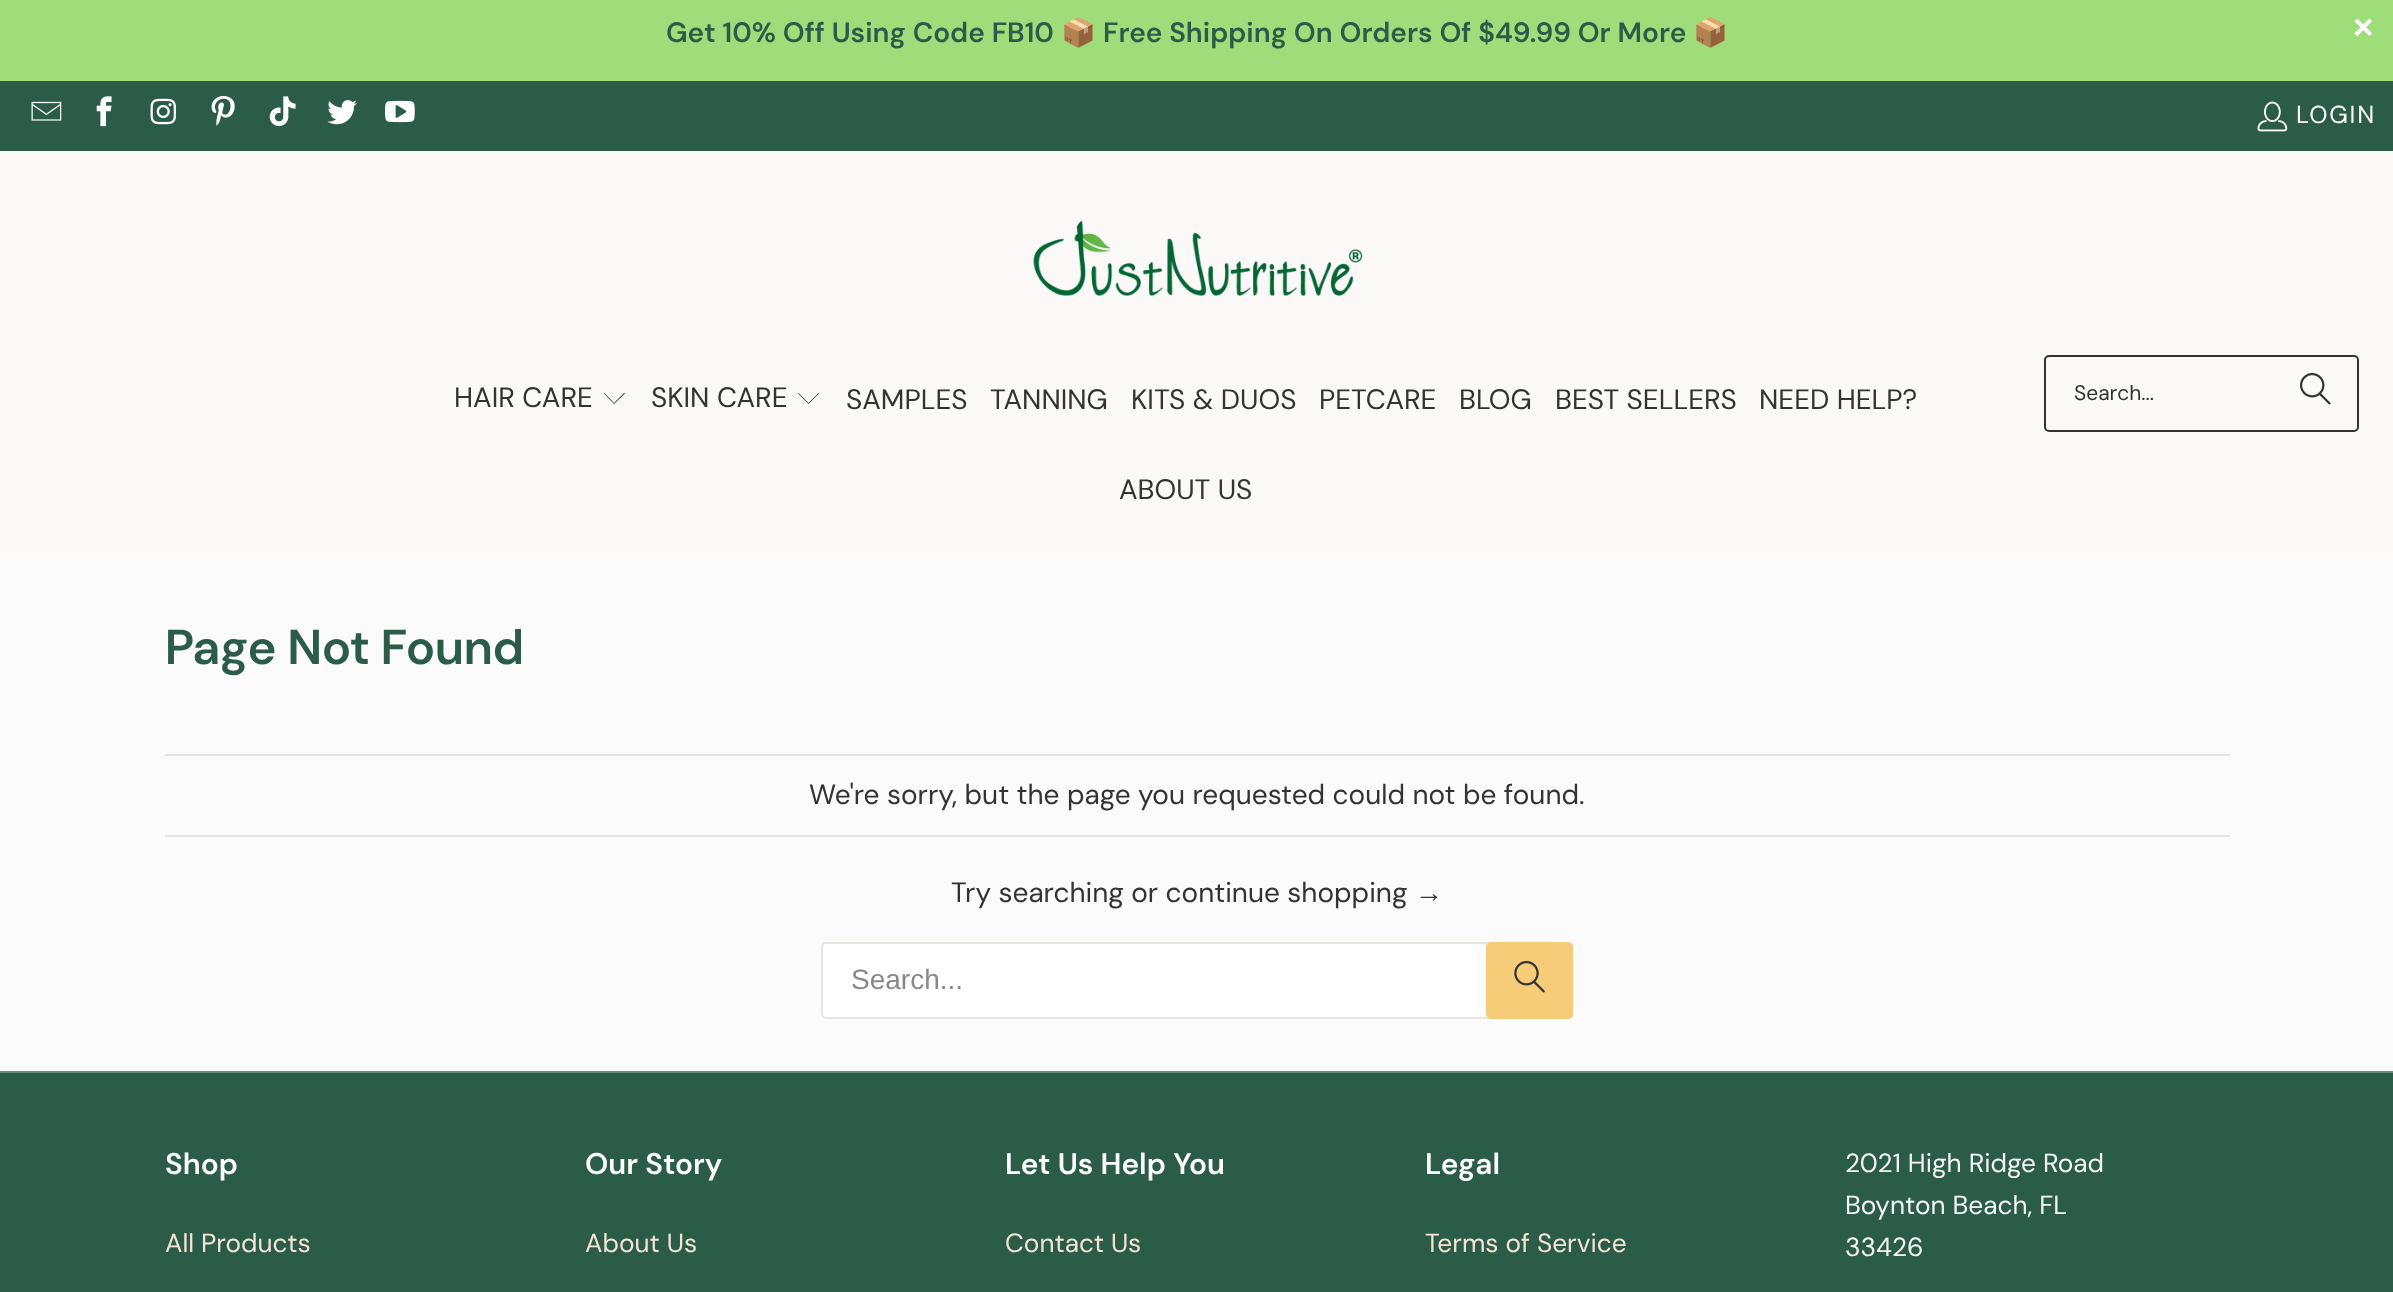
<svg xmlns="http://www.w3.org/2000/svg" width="2393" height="1292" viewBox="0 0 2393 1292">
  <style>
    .t1 { font: 600 28px 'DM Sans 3'; fill: #2b5c48; }
    .t2 { font: bold 28px Noto Color Emoji; fill: #2b5c48; }
    .t3 { font: bold 35px Liberation Sans; fill: #fff; }
    .t4 { font: 24.5px 'DM Sans 3'; letter-spacing: 1.75px; fill: #fff; }
    .t5 { font: 28px DM Sans; fill: #333; }
    .t6 { font: 21px 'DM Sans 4'; fill: #333; }
    .t7 { font: 600 49px DM Sans; fill: #2b5c48; }
    .t8 { font: 28px Liberation Sans; fill: #333; }
    .t9 { font: 28px Liberation Sans; fill: #888; }
    .t10 { font: 600 29.75px 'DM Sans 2'; fill: #fff; }
    .t11 { font: 26.25px 'DM Sans 2'; fill: #f4e4d7; }
    .t12 { font: 26.25px 'DM Sans 2'; fill: #f4f4f4; }
  </style>
  <rect width="100%" height="100%" fill="#fbfbfb"/>
  <rect x="0" y="0" width="2393" height="81" fill="#9fdd7a"/>
  <text x="666" y="42" class="t1">Get 10% Off Using Code FB10</text>
  <text x="1061" y="42" class="t2">📦</text>
  <text x="1103" y="42" class="t1">Free Shipping On Orders Of $49.99 Or More</text>
  <text x="1693" y="42" class="t2">📦</text>
  <text x="2353" y="39" class="t3">×</text>
  <rect x="0" y="81" width="2393" height="70" fill="#2b5c48"/>
  <image x="31" y="101" width="31" height="20" href="images/1.png"/>
  <image x="96" y="96" width="16" height="31" href="images/2.png"/>
  <image x="150" y="98" width="26" height="27" href="images/3.png"/>
  <image x="211" y="96" width="24" height="30" href="images/4.png"/>
  <image x="269" y="96" width="27" height="31" href="images/5.png"/>
  <image x="327" y="100" width="30" height="25" href="images/6.png"/>
  <image x="385" y="100" width="30" height="23" href="images/7.png"/>
  <image x="2257" y="101" width="31" height="31" href="images/8.png"/>
  <text x="2296" y="123" class="t4">LOGIN</text>
  <rect x="0" y="151" width="2393" height="402" fill="#fbf9f7"/>
  <image x="1033" y="220" width="330" height="77" href="images/9.png"/>
  <text x="454" y="407" class="t5">HAIR CARE</text>
  <path d="M614 404L604 393.5L604.5 393L614 403L624 393L625 393.5Z" fill="#333"/>
  <text x="651" y="407" class="t5">SKIN CARE</text>
  <path d="M808.5 404L798 393.5L798.5 393L808.5 403L818.5 393L819 393.5Z" fill="#333"/>
  <text x="846" y="409" class="t5">SAMPLES</text>
  <text x="990" y="409" class="t5">TANNING</text>
  <text x="1131" y="409" class="t5">KITS &amp; DUOS</text>
  <text x="1319" y="409" class="t5">PETCARE</text>
  <text x="1459" y="409" class="t5">BLOG</text>
  <text x="1555" y="409" class="t5">BEST SELLERS</text>
  <text x="1759" y="409" class="t5">NEED HELP?</text>
  <text x="1119" y="499" class="t5">ABOUT US</text>
  <rect x="2045" y="356" width="313" height="75" rx="4" fill="none" stroke="#333" stroke-width="2"/>
  <text x="2074" y="400" class="t6">Search...</text>
  <image x="2300" y="373" width="31" height="32" href="images/10.png"/>
  <text x="165" y="664" class="t7">Page Not Found</text>
  <rect x="165" y="754" width="2065" height="2" fill="#e8e4df"/>
  <rect x="165" y="835" width="2065" height="2" fill="#e8e4df"/>
  <text x="809" y="804" class="t5">We're sorry, but the page you requested could not be found.</text>
  <text x="951" y="902" class="t5">Try searching or continue shopping</text>
  <text x="1415" y="902" class="t8">→</text>
  <rect x="822" y="943" width="750" height="75" rx="4" fill="#fff" stroke="#e8e4df" stroke-width="2"/>
  <text x="851" y="989" class="t9">Search...</text>
  <rect x="1486" y="942" width="87" height="77" rx="5" fill="#f6cc79"/>
  <image x="1514" y="961" width="31" height="32" href="images/11.png"/>
  <rect x="0" y="1073" width="2393" height="219" fill="#2b5c48"/>
  <rect x="0" y="1071" width="2393" height="2" fill="#618d77"/>
  <text x="165" y="1174" class="t10">Shop</text>
  <text x="165" y="1252" class="t11">All Products</text>
  <text x="585" y="1174" class="t10">Our Story</text>
  <text x="585" y="1252" class="t11">About Us</text>
  <text x="1005" y="1174" class="t10">Let Us Help You</text>
  <text x="1005" y="1252" class="t11">Contact Us</text>
  <text x="1425" y="1174" class="t10">Legal</text>
  <text x="1425" y="1252" class="t11">Terms of Service</text>
  <text x="1845" y="1172" class="t12">2021 High Ridge Road</text>
  <text x="1845" y="1214" class="t12">Boynton Beach, FL</text>
  <text x="1845" y="1256" class="t12">33426</text>
</svg>
